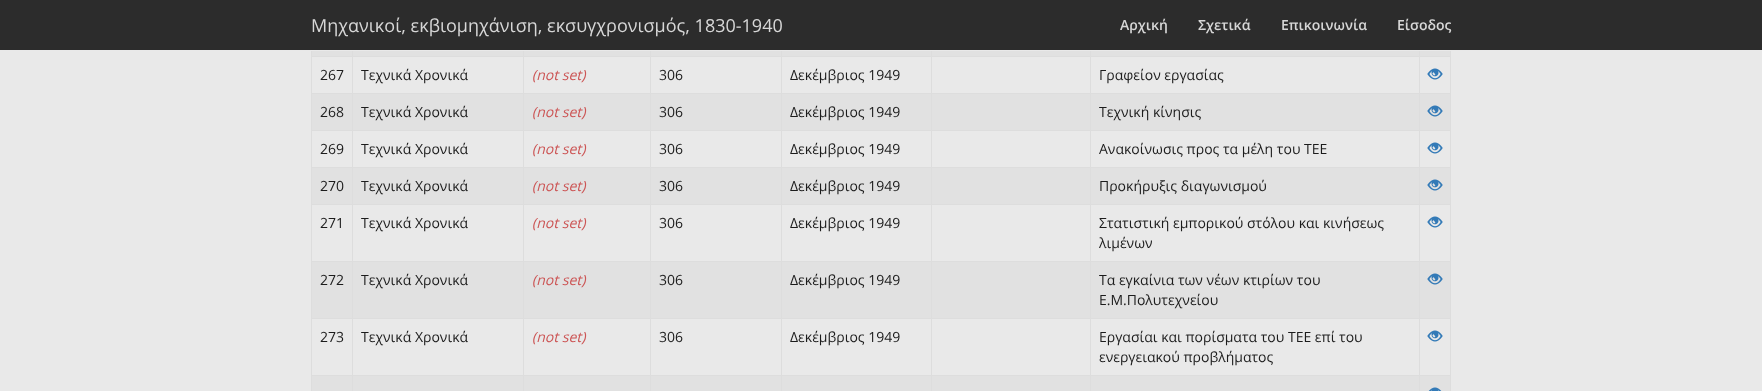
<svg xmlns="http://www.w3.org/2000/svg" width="1762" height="391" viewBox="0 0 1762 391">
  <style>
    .t1 { font: 18px Open Sans; fill: #d7d7d7; }
    .t2 { font: 600 14px Open Sans; fill: #d7d7d7; }
    .t3 { font: 14px Open Sans; fill: #1c1c1c; }
    .t4 { font: italic 14px Open Sans; fill: #c55; }
  </style>
  <rect width="100%" height="100%" fill="#e9e9e9"/>
  <rect x="0" y="0" width="1762" height="50" fill="#2c2c2c"/>
  <text x="311" y="32" class="t1">Μηχανικοί, εκβιομηχάνιση, εκσυγχρονισμός, 1830-1940</text>
  <text x="1120" y="30" class="t2">Αρχική</text>
  <text x="1198" y="30" class="t2">Σχετικά</text>
  <text x="1281" y="30" class="t2">Επικοινωνία</text>
  <text x="1397" y="30" class="t2">Είσοδος</text>
  <rect x="312" y="51" width="1138" height="340" fill="#e1e1e1"/>
  <rect x="1419" y="56" width="32" height="1" fill="#ddd"/>
  <rect x="312" y="57" width="1138" height="36" fill="#e9e9e9"/>
  <rect x="1419" y="93" width="32" height="1" fill="#ddd"/>
  <rect x="1419" y="130" width="32" height="1" fill="#ddd"/>
  <rect x="312" y="131" width="1138" height="36" fill="#e9e9e9"/>
  <rect x="1419" y="167" width="32" height="1" fill="#ddd"/>
  <rect x="1419" y="204" width="32" height="1" fill="#ddd"/>
  <rect x="312" y="205" width="1138" height="56" fill="#e9e9e9"/>
  <rect x="1419" y="261" width="32" height="1" fill="#ddd"/>
  <rect x="1419" y="318" width="32" height="1" fill="#ddd"/>
  <rect x="312" y="319" width="1138" height="56" fill="#e9e9e9"/>
  <rect x="1419" y="375" width="32" height="1" fill="#ddd"/>
  <rect x="1419" y="375" width="1" height="16" fill="#ddd"/>
  <rect x="1090" y="375" width="330" height="1" fill="#ddd"/>
  <rect x="1419" y="318" width="1" height="58" fill="#ddd"/>
  <rect x="1090" y="318" width="330" height="1" fill="#ddd"/>
  <rect x="1419" y="261" width="1" height="58" fill="#ddd"/>
  <rect x="1090" y="261" width="330" height="1" fill="#ddd"/>
  <rect x="1419" y="204" width="1" height="58" fill="#ddd"/>
  <rect x="1090" y="204" width="330" height="1" fill="#ddd"/>
  <rect x="1419" y="167" width="1" height="38" fill="#ddd"/>
  <rect x="1090" y="167" width="330" height="1" fill="#ddd"/>
  <rect x="1419" y="130" width="1" height="38" fill="#ddd"/>
  <rect x="1090" y="130" width="330" height="1" fill="#ddd"/>
  <rect x="1419" y="93" width="1" height="38" fill="#ddd"/>
  <rect x="1090" y="93" width="330" height="1" fill="#ddd"/>
  <rect x="1419" y="56" width="1" height="38" fill="#ddd"/>
  <rect x="1090" y="56" width="330" height="1" fill="#ddd"/>
  <rect x="1090" y="375" width="1" height="16" fill="#ddd"/>
  <rect x="931" y="375" width="160" height="1" fill="#ddd"/>
  <rect x="1090" y="318" width="1" height="58" fill="#ddd"/>
  <rect x="931" y="318" width="160" height="1" fill="#ddd"/>
  <rect x="1090" y="261" width="1" height="58" fill="#ddd"/>
  <rect x="931" y="261" width="160" height="1" fill="#ddd"/>
  <rect x="1090" y="204" width="1" height="58" fill="#ddd"/>
  <rect x="931" y="204" width="160" height="1" fill="#ddd"/>
  <rect x="1090" y="167" width="1" height="38" fill="#ddd"/>
  <rect x="931" y="167" width="160" height="1" fill="#ddd"/>
  <rect x="1090" y="130" width="1" height="38" fill="#ddd"/>
  <rect x="931" y="130" width="160" height="1" fill="#ddd"/>
  <rect x="1090" y="93" width="1" height="38" fill="#ddd"/>
  <rect x="931" y="93" width="160" height="1" fill="#ddd"/>
  <rect x="1090" y="56" width="1" height="38" fill="#ddd"/>
  <rect x="931" y="56" width="160" height="1" fill="#ddd"/>
  <rect x="931" y="375" width="1" height="16" fill="#ddd"/>
  <rect x="781" y="375" width="151" height="1" fill="#ddd"/>
  <rect x="931" y="318" width="1" height="58" fill="#ddd"/>
  <rect x="781" y="318" width="151" height="1" fill="#ddd"/>
  <rect x="931" y="261" width="1" height="58" fill="#ddd"/>
  <rect x="781" y="261" width="151" height="1" fill="#ddd"/>
  <rect x="931" y="204" width="1" height="58" fill="#ddd"/>
  <rect x="781" y="204" width="151" height="1" fill="#ddd"/>
  <rect x="931" y="167" width="1" height="38" fill="#ddd"/>
  <rect x="781" y="167" width="151" height="1" fill="#ddd"/>
  <rect x="931" y="130" width="1" height="38" fill="#ddd"/>
  <rect x="781" y="130" width="151" height="1" fill="#ddd"/>
  <rect x="931" y="93" width="1" height="38" fill="#ddd"/>
  <rect x="781" y="93" width="151" height="1" fill="#ddd"/>
  <rect x="931" y="56" width="1" height="38" fill="#ddd"/>
  <rect x="781" y="56" width="151" height="1" fill="#ddd"/>
  <rect x="781" y="375" width="1" height="16" fill="#ddd"/>
  <rect x="650" y="375" width="132" height="1" fill="#ddd"/>
  <rect x="781" y="318" width="1" height="58" fill="#ddd"/>
  <rect x="650" y="318" width="132" height="1" fill="#ddd"/>
  <rect x="781" y="261" width="1" height="58" fill="#ddd"/>
  <rect x="650" y="261" width="132" height="1" fill="#ddd"/>
  <rect x="781" y="204" width="1" height="58" fill="#ddd"/>
  <rect x="650" y="204" width="132" height="1" fill="#ddd"/>
  <rect x="781" y="167" width="1" height="38" fill="#ddd"/>
  <rect x="650" y="167" width="132" height="1" fill="#ddd"/>
  <rect x="781" y="130" width="1" height="38" fill="#ddd"/>
  <rect x="650" y="130" width="132" height="1" fill="#ddd"/>
  <rect x="781" y="93" width="1" height="38" fill="#ddd"/>
  <rect x="650" y="93" width="132" height="1" fill="#ddd"/>
  <rect x="781" y="56" width="1" height="38" fill="#ddd"/>
  <rect x="650" y="56" width="132" height="1" fill="#ddd"/>
  <rect x="650" y="375" width="1" height="16" fill="#ddd"/>
  <rect x="523" y="375" width="128" height="1" fill="#ddd"/>
  <rect x="650" y="318" width="1" height="58" fill="#ddd"/>
  <rect x="523" y="318" width="128" height="1" fill="#ddd"/>
  <rect x="650" y="261" width="1" height="58" fill="#ddd"/>
  <rect x="523" y="261" width="128" height="1" fill="#ddd"/>
  <rect x="650" y="204" width="1" height="58" fill="#ddd"/>
  <rect x="523" y="204" width="128" height="1" fill="#ddd"/>
  <rect x="650" y="167" width="1" height="38" fill="#ddd"/>
  <rect x="523" y="167" width="128" height="1" fill="#ddd"/>
  <rect x="650" y="130" width="1" height="38" fill="#ddd"/>
  <rect x="523" y="130" width="128" height="1" fill="#ddd"/>
  <rect x="650" y="93" width="1" height="38" fill="#ddd"/>
  <rect x="523" y="93" width="128" height="1" fill="#ddd"/>
  <rect x="650" y="56" width="1" height="38" fill="#ddd"/>
  <rect x="523" y="56" width="128" height="1" fill="#ddd"/>
  <rect x="523" y="375" width="1" height="16" fill="#ddd"/>
  <rect x="352" y="375" width="172" height="1" fill="#ddd"/>
  <rect x="523" y="318" width="1" height="58" fill="#ddd"/>
  <rect x="352" y="318" width="172" height="1" fill="#ddd"/>
  <rect x="523" y="261" width="1" height="58" fill="#ddd"/>
  <rect x="352" y="261" width="172" height="1" fill="#ddd"/>
  <rect x="523" y="204" width="1" height="58" fill="#ddd"/>
  <rect x="352" y="204" width="172" height="1" fill="#ddd"/>
  <rect x="523" y="167" width="1" height="38" fill="#ddd"/>
  <rect x="352" y="167" width="172" height="1" fill="#ddd"/>
  <rect x="523" y="130" width="1" height="38" fill="#ddd"/>
  <rect x="352" y="130" width="172" height="1" fill="#ddd"/>
  <rect x="523" y="93" width="1" height="38" fill="#ddd"/>
  <rect x="352" y="93" width="172" height="1" fill="#ddd"/>
  <rect x="523" y="56" width="1" height="38" fill="#ddd"/>
  <rect x="352" y="56" width="172" height="1" fill="#ddd"/>
  <rect x="352" y="375" width="1" height="16" fill="#ddd"/>
  <rect x="311" y="375" width="42" height="1" fill="#ddd"/>
  <rect x="352" y="318" width="1" height="58" fill="#ddd"/>
  <rect x="311" y="318" width="42" height="1" fill="#ddd"/>
  <rect x="352" y="261" width="1" height="58" fill="#ddd"/>
  <rect x="311" y="261" width="42" height="1" fill="#ddd"/>
  <rect x="352" y="204" width="1" height="58" fill="#ddd"/>
  <rect x="311" y="204" width="42" height="1" fill="#ddd"/>
  <rect x="352" y="167" width="1" height="38" fill="#ddd"/>
  <rect x="311" y="167" width="42" height="1" fill="#ddd"/>
  <rect x="352" y="130" width="1" height="38" fill="#ddd"/>
  <rect x="311" y="130" width="42" height="1" fill="#ddd"/>
  <rect x="352" y="93" width="1" height="38" fill="#ddd"/>
  <rect x="311" y="93" width="42" height="1" fill="#ddd"/>
  <rect x="352" y="56" width="1" height="38" fill="#ddd"/>
  <rect x="311" y="56" width="42" height="1" fill="#ddd"/>
  <rect x="352" y="51" width="1" height="6" fill="#ddd"/>
  <rect x="523" y="51" width="1" height="6" fill="#ddd"/>
  <rect x="650" y="51" width="1" height="6" fill="#ddd"/>
  <rect x="781" y="51" width="1" height="6" fill="#ddd"/>
  <rect x="931" y="51" width="1" height="6" fill="#ddd"/>
  <rect x="1090" y="51" width="1" height="6" fill="#ddd"/>
  <rect x="1419" y="51" width="1" height="6" fill="#ddd"/>
  <rect x="311" y="375" width="1" height="16" fill="#ddd"/>
  <rect x="311" y="318" width="1" height="58" fill="#ddd"/>
  <rect x="311" y="261" width="1" height="58" fill="#ddd"/>
  <rect x="311" y="204" width="1" height="58" fill="#ddd"/>
  <rect x="311" y="167" width="1" height="38" fill="#ddd"/>
  <rect x="311" y="130" width="1" height="38" fill="#ddd"/>
  <rect x="311" y="93" width="1" height="38" fill="#ddd"/>
  <rect x="311" y="51" width="1" height="43" fill="#ddd"/>
  <text x="320" y="80" class="t3">267</text>
  <text x="361" y="80" class="t3">Τεχνικά Χρονικά</text>
  <text x="532" y="80" class="t4">(not set)</text>
  <text x="659" y="80" class="t3">306</text>
  <text x="790" y="80" class="t3">Δεκέμβριος 1949</text>
  <text x="1099" y="80" class="t3">Γραφείον εργασίας</text>
  <rect x="1450" y="375" width="1" height="16" fill="#ddd"/>
  <rect x="1450" y="318" width="1" height="58" fill="#ddd"/>
  <rect x="1450" y="261" width="1" height="58" fill="#ddd"/>
  <rect x="1450" y="204" width="1" height="58" fill="#ddd"/>
  <rect x="1450" y="167" width="1" height="38" fill="#ddd"/>
  <rect x="1450" y="130" width="1" height="38" fill="#ddd"/>
  <rect x="1450" y="93" width="1" height="38" fill="#ddd"/>
  <rect x="1450" y="51" width="1" height="43" fill="#ddd"/>
  <image x="1427" y="68" width="16" height="12" href="images/1.png"/>
  <text x="320" y="117" class="t3">268</text>
  <text x="361" y="117" class="t3">Τεχνικά Χρονικά</text>
  <text x="532" y="117" class="t4">(not set)</text>
  <text x="659" y="117" class="t3">306</text>
  <text x="790" y="117" class="t3">Δεκέμβριος 1949</text>
  <text x="1099" y="117" class="t3">Τεχνική κίνησις</text>
  <image x="1427" y="105" width="16" height="12" href="images/2.png"/>
  <text x="320" y="154" class="t3">269</text>
  <text x="361" y="154" class="t3">Τεχνικά Χρονικά</text>
  <text x="532" y="154" class="t4">(not set)</text>
  <text x="659" y="154" class="t3">306</text>
  <text x="790" y="154" class="t3">Δεκέμβριος 1949</text>
  <text x="1099" y="154" class="t3">Ανακοίνωσις προς τα μέλη του ΤΕΕ</text>
  <image x="1427" y="142" width="16" height="12" href="images/1.png"/>
  <text x="320" y="191" class="t3">270</text>
  <text x="361" y="191" class="t3">Τεχνικά Χρονικά</text>
  <text x="532" y="191" class="t4">(not set)</text>
  <text x="659" y="191" class="t3">306</text>
  <text x="790" y="191" class="t3">Δεκέμβριος 1949</text>
  <text x="1099" y="191" class="t3">Προκήρυξις διαγωνισμού</text>
  <image x="1427" y="179" width="16" height="12" href="images/2.png"/>
  <text x="320" y="228" class="t3">271</text>
  <text x="361" y="228" class="t3">Τεχνικά Χρονικά</text>
  <text x="532" y="228" class="t4">(not set)</text>
  <text x="659" y="228" class="t3">306</text>
  <text x="790" y="228" class="t3">Δεκέμβριος 1949</text>
  <text x="1099" y="228" class="t3">Στατιστική εμπορικού στόλου και κινήσεως</text>
  <text x="1099" y="248" class="t3">λιμένων</text>
  <image x="1427" y="216" width="16" height="12" href="images/1.png"/>
  <text x="320" y="285" class="t3">272</text>
  <text x="361" y="285" class="t3">Τεχνικά Χρονικά</text>
  <text x="532" y="285" class="t4">(not set)</text>
  <text x="659" y="285" class="t3">306</text>
  <text x="790" y="285" class="t3">Δεκέμβριος 1949</text>
  <text x="1099" y="285" class="t3">Τα εγκαίνια των νέων κτιρίων του</text>
  <text x="1099" y="305" class="t3">Ε.Μ.Πολυτεχνείου</text>
  <image x="1427" y="273" width="16" height="12" href="images/2.png"/>
  <text x="320" y="342" class="t3">273</text>
  <text x="361" y="342" class="t3">Τεχνικά Χρονικά</text>
  <text x="532" y="342" class="t4">(not set)</text>
  <text x="659" y="342" class="t3">306</text>
  <text x="790" y="342" class="t3">Δεκέμβριος 1949</text>
  <text x="1099" y="342" class="t3">Εργασίαι και πορίσματα του ΤΕΕ επί του</text>
  <text x="1099" y="362" class="t3">ενεργειακού προβλήματος</text>
  <image x="1427" y="330" width="16" height="12" href="images/1.png"/>
  <image x="1428" y="387" width="14" height="4" href="images/3.png"/>
</svg>
